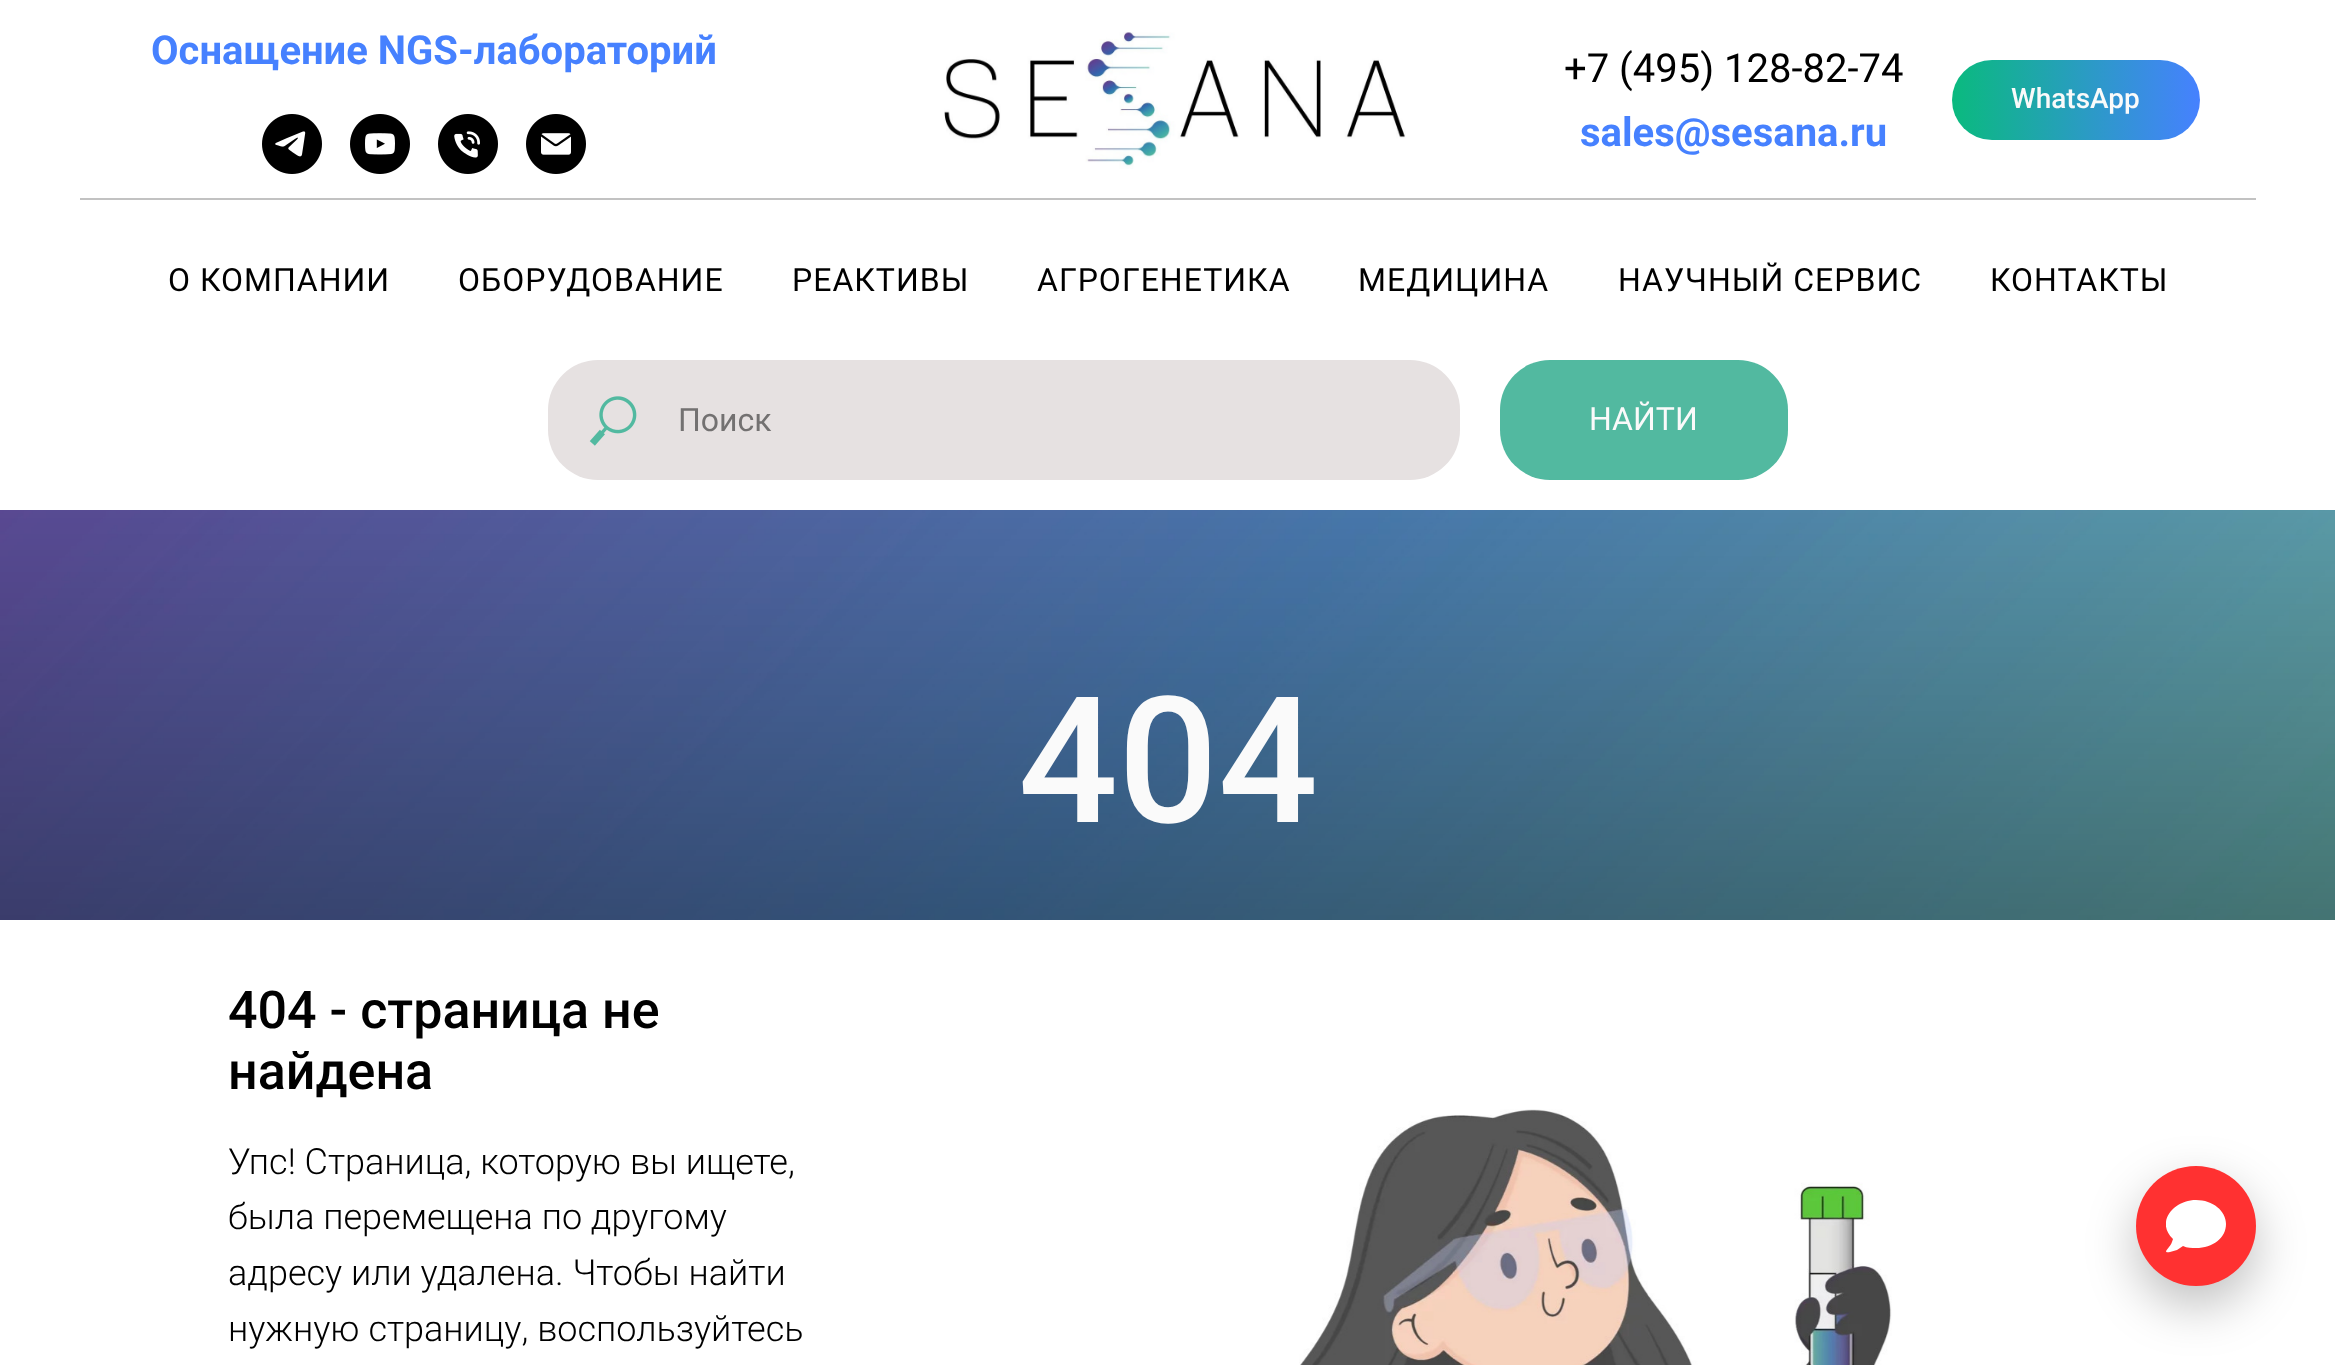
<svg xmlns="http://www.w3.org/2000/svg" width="2335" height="1365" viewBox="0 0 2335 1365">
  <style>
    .t1 { font: bold 40px Roboto; fill: #4681ff; }
    .t2 { font: 40px Roboto; fill: #000; }
    .t3 { font: 500 28px Roboto; fill: #fafafa; }
    .t4 { font: 32px Roboto; letter-spacing: 1px; fill: #000; }
    .t5 { font: 32px Roboto; fill: #737171; }
    .t6 { font: 32px Roboto; fill: #fafafa; }
    .t7 { font: 500 176px Roboto; fill: #fafafa; }
    .t8 { font: 500 52px Roboto; fill: #000; }
    .t9 { font: 300 36px Roboto; fill: #000; }
  </style>
  <defs>
    <linearGradient id="g1" gradientUnits="userSpaceOnUse" x1="1952" y1="100" x2="2200" y2="100"><stop offset="0" stop-color="#0aba7e"/><stop offset="1" stop-color="#4681ff"/></linearGradient>
    <clipPath id="clip1"><rect x="2166" y="1196" width="60" height="60"/></clipPath>
  </defs>
  <rect width="100%" height="100%" fill="#fff"/>
  <image x="944" y="32" width="462" height="137" href="images/1.png"/>
  <text x="151" y="64" class="t1">Оснащение NGS-лабораторий</text>
  <image x="262" y="114" width="60" height="60" href="images/2.png"/>
  <image x="350" y="114" width="60" height="60" href="images/3.png"/>
  <image x="438" y="114" width="60" height="60" href="images/4.png"/>
  <image x="526" y="114" width="60" height="60" href="images/5.png"/>
  <text x="1564" y="82" class="t2">+7 (495) 128-82-74</text>
  <text x="1580" y="146" class="t1">sales@sesana.ru</text>
  <rect x="1952" y="60" width="248" height="80" rx="40" fill="url(#g1)"/>
  <text x="2011" y="108" class="t3">WhatsApp</text>
  <rect x="80" y="198" width="2176" height="2" fill="#c2c2c2"/>
  <text x="168" y="291" class="t4">О КОМПАНИИ</text>
  <text x="458" y="291" class="t4">ОБОРУДОВАНИЕ</text>
  <text x="792" y="291" class="t4">РЕАКТИВЫ</text>
  <text x="1037" y="291" class="t4">АГРОГЕНЕТИКА</text>
  <text x="1358" y="291" class="t4">МЕДИЦИНА</text>
  <text x="1618" y="291" class="t4">НАУЧНЫЙ СЕРВИС</text>
  <text x="1990" y="291" class="t4">КОНТАКТЫ</text>
  <rect x="548" y="360" width="912" height="120" rx="50" fill="#e6e1e1"/>
  <image x="589" y="396" width="48" height="50" href="images/6.png"/>
  <text x="678" y="431" class="t5">Поиск</text>
  <rect x="1500" y="360" width="288" height="120" rx="50" fill="#52b9a0"/>
  <text x="1589" y="430" class="t6">НАЙТИ</text>
  <image x="0" y="510" width="2335" height="410" href="images/7.png"/>
  <text x="1018" y="822" class="t7">404</text>
  <text x="228" y="1028" class="t8">404 - страница не</text>
  <text x="228" y="1089" class="t8">найдена</text>
  <text x="228" y="1174" class="t9">Упс! Страница, которую вы ищете,</text>
  <text x="228" y="1229" class="t9">была перемещена по другому</text>
  <text x="228" y="1285" class="t9">адресу или удалена. Чтобы найти</text>
  <text x="228" y="1341" class="t9">нужную страницу, воспользуйтесь</text>
  <image x="1299" y="1109" width="593" height="256" href="images/8.png"/>
  <rect x="2136" y="1186" width="120" height="120" rx="60" fill="#00000040" filter="blur(25px)"/>
  <circle cx="2196" cy="1226" r="60" fill="#ff3131"/>
  <g clip-path="url(#clip1)">
    <path d="M2196 1200C2174 1200 2155 1222 2173 1239C2172 1242 2171 1245 2169 1247C2167 1250 2163 1253 2170 1252L2177 1250L2183 1246C2187 1248 2192 1248 2196 1248C2213 1248 2226 1238 2226 1224C2226 1211 2213 1200 2196 1200Z" fill="#fff"/>
  </g>
</svg>
